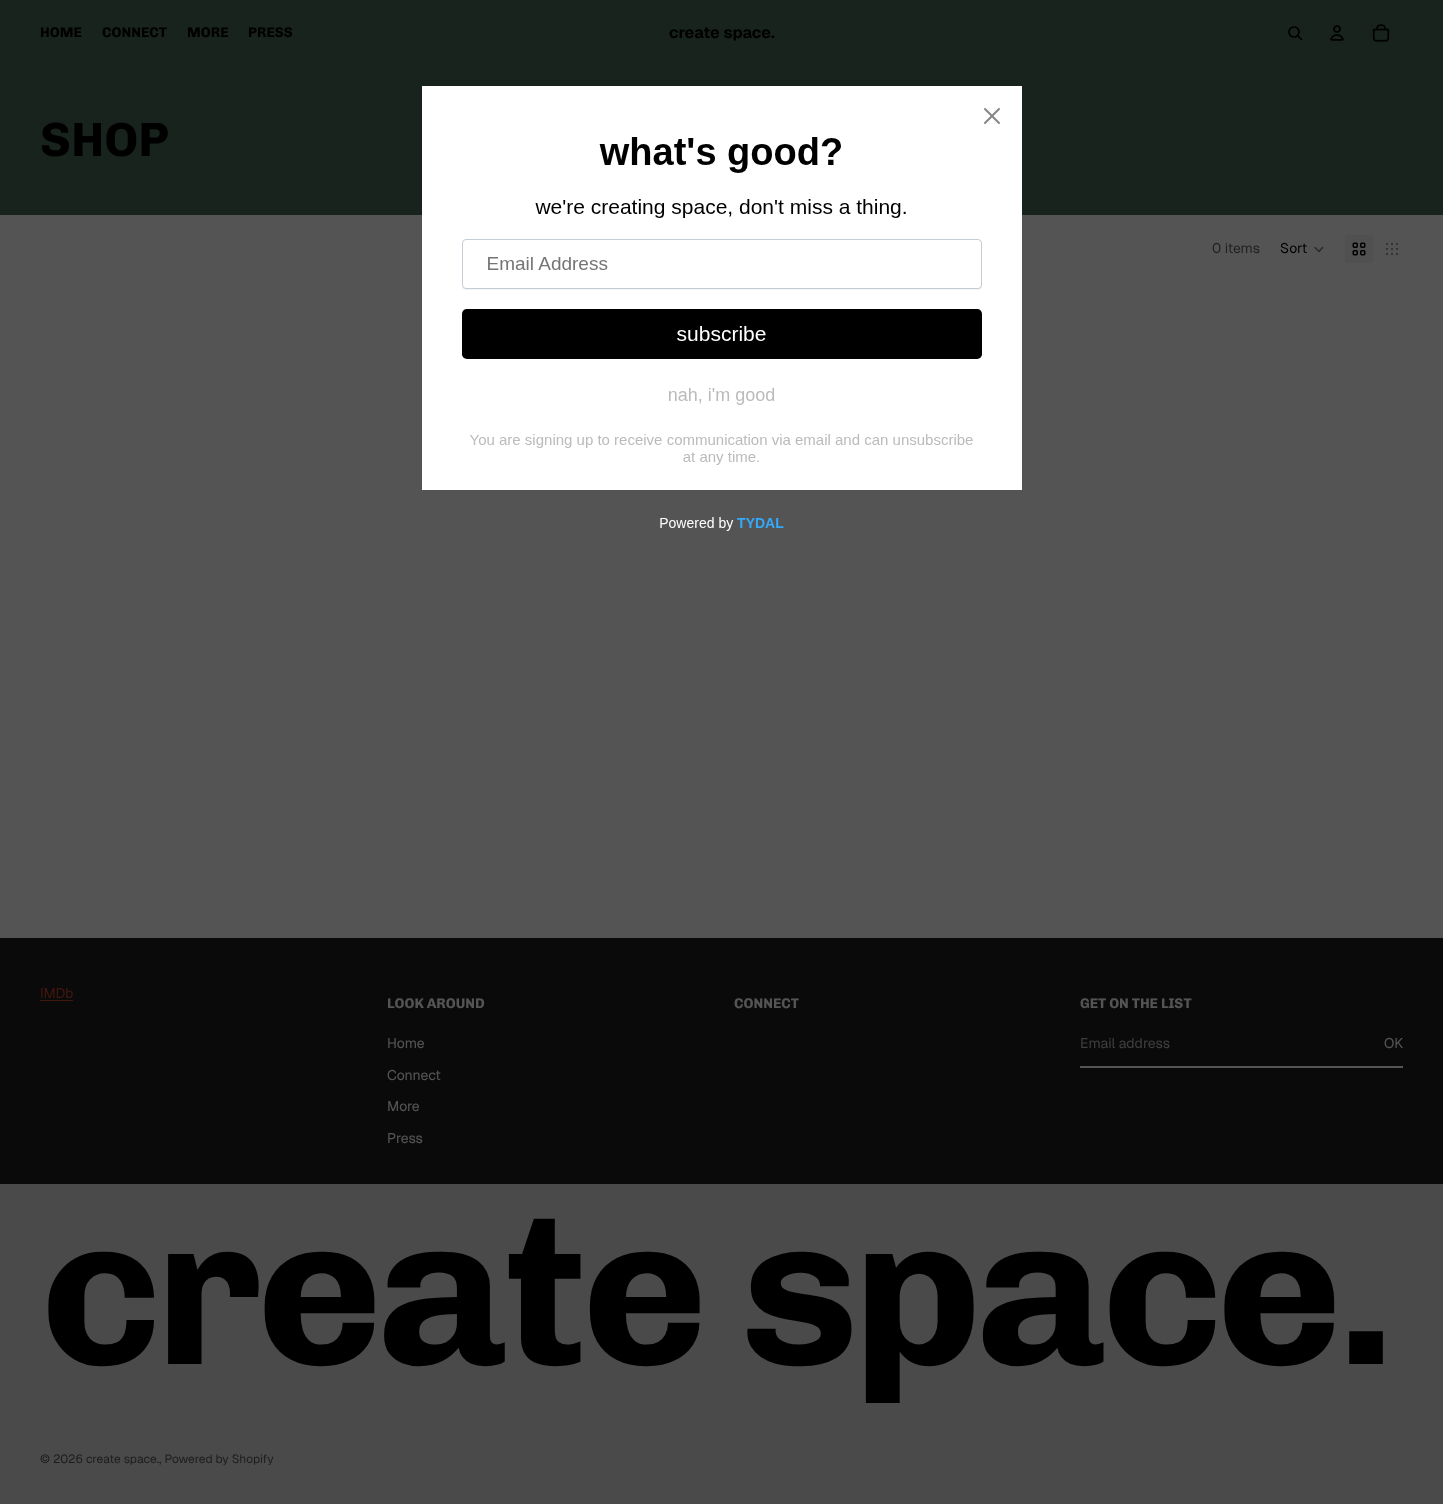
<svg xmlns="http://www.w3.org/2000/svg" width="1443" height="1504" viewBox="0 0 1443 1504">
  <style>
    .t1 { font: bold 14px Chivo; fill: #000; }
    .t2 { font: bold 16px Geist; fill: #000; }
    .t3 { font: bold 48px Chivo; fill: #000; }
    .t4 { font: 14px Geist; fill: #666; }
    .t5 { font: 14px Geist; fill: #000; }
    .t6 { font: 14px Geist; fill: #c4442c; }
    .t7 { font: bold 14px Chivo; fill: #fff; }
    .t8 { font: 14px Geist; fill: #fff; }
    .t9 { font: 14px Geist; fill: #bcbcbc; }
    .t10 { font: bold 215.5px Chivo; letter-spacing: -6.5px; fill: #000; }
    .t11 { font: 12px Geist; fill: #5a5a5a; }
  </style>
  <rect width="100%" height="100%" fill="#fff"/>
  <rect x="0" y="0" width="1443" height="215" fill="#4a6a5a"/>
  <text x="40" y="37" class="t1">HOME</text>
  <text x="102" y="37" class="t1">CONNECT</text>
  <text x="187" y="37" class="t1">MORE</text>
  <text x="248" y="37" class="t1">PRESS</text>
  <text x="669" y="38" class="t2">create space.</text>
  <circle cx="1294" cy="32" r="5" fill="none" stroke="#000" stroke-width="1.7"/>
  <path d="M1298 36L1301.5 39.5" fill="none" stroke="#000" stroke-width="1.7" stroke-linecap="round" stroke-linejoin="round"/>
  <image x="1330" y="25" width="14" height="16" href="images/2.png"/>
  <image x="1372" y="24" width="18" height="18" href="images/3.png"/>
  <text x="40" y="156" class="t3">SHOP</text>
  <text x="1212" y="253" class="t4">0 items</text>
  <text x="1280" y="253" class="t5">Sort</text>
  <path d="M1322.5 247.5L1319 251.5L1315 247.5" fill="none" stroke="#808080" stroke-width="1.5" stroke-linecap="round" stroke-linejoin="round"/>
  <rect x="1345" y="235" width="28" height="28" rx="3" fill="#f2f2f2"/>
  <image x="1352" y="242" width="14" height="14" href="images/4.png"/>
  <image x="1386" y="243" width="12" height="12" href="images/5.png"/>
  <rect x="0" y="938" width="1443" height="246" fill="#202020"/>
  <text x="40" y="998" class="t6">IMDb</text>
  <rect x="40" y="1000" width="33" height="1" fill="#c4442c"/>
  <text x="387" y="1008" class="t7">LOOK AROUND</text>
  <text x="387" y="1048" class="t8">Home</text>
  <text x="387" y="1080" class="t8">Connect</text>
  <text x="387" y="1111" class="t8">More</text>
  <text x="387" y="1143" class="t8">Press</text>
  <text x="734" y="1008" class="t7">CONNECT</text>
  <text x="1080" y="1008" class="t7">GET ON THE LIST</text>
  <rect x="1080" y="1066" width="323" height="2" fill="#fff"/>
  <text x="1080" y="1048" class="t9">Email address</text>
  <text x="1384" y="1048" class="t8">OK</text>
  <rect x="0" y="1184" width="1443" height="320" fill="#e1e1e1"/>
  <text x="40" y="1364" class="t10">create space.</text>
  <text x="40" y="1463" class="t11">© 2026 create space., Powered by Shopify</text>
  <image x="0" y="0" width="1443" height="1504" href="images/1.png"/>
</svg>
